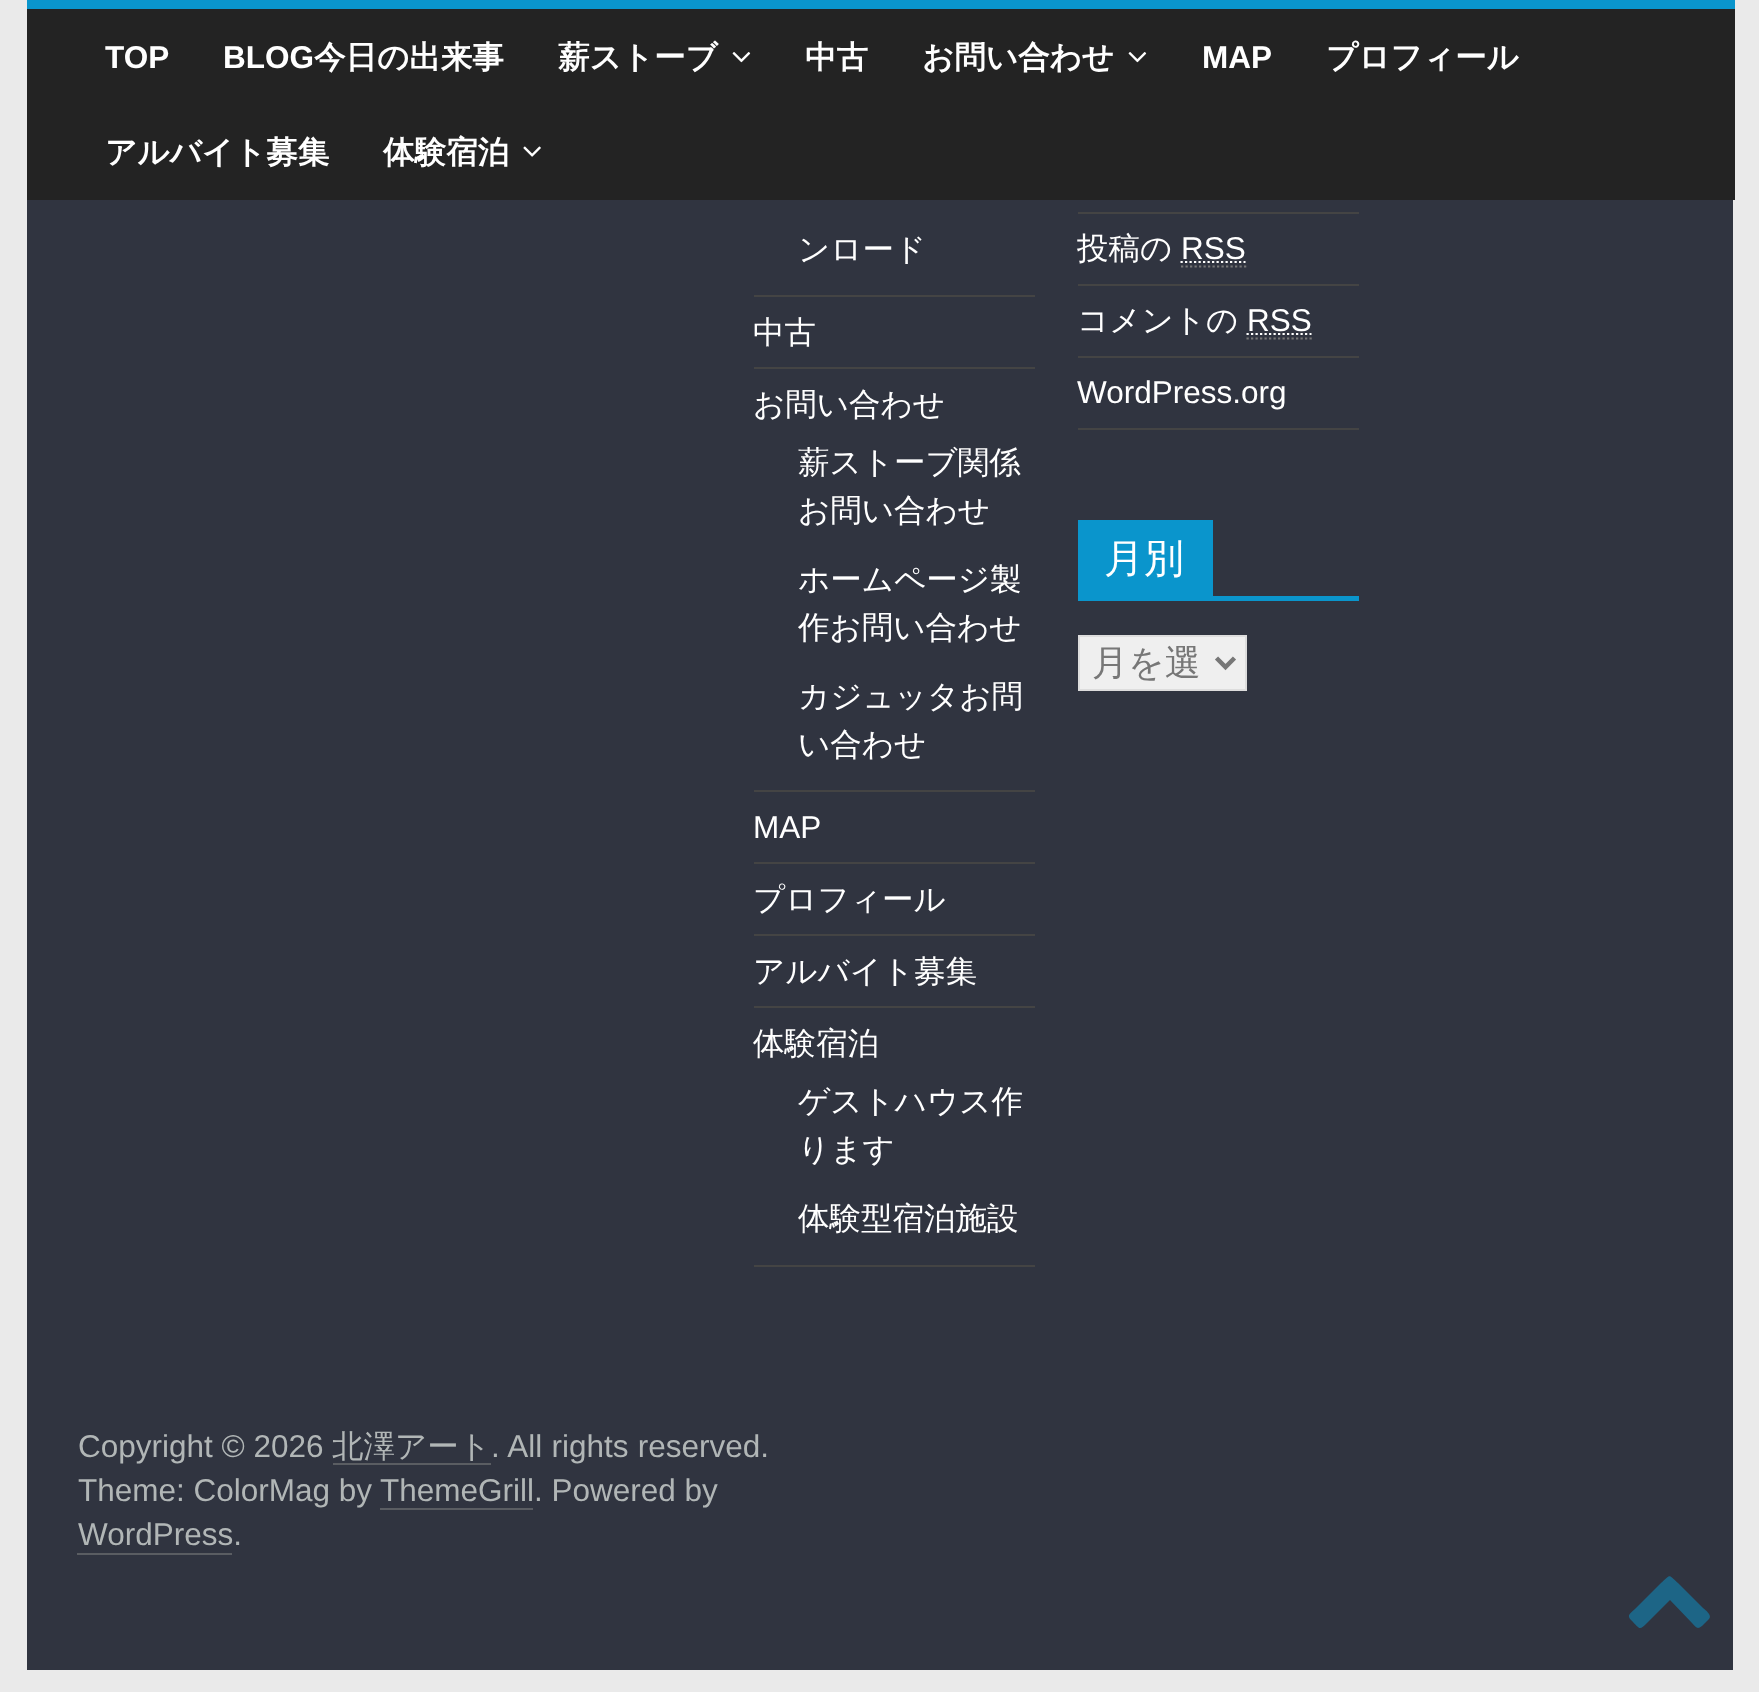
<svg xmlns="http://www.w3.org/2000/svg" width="1759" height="1692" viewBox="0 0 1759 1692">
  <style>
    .t1 { font: bold 31.5px Liberation Sans; fill: #fff; }
    .t2 { font: bold 31.5px WenQuanYi Zen Hei; fill: #fff; }
    .t3 { font: 500 31.5px WenQuanYi Zen Hei; fill: #fff; }
    .t4 { font: 31.5px Liberation Sans; fill: #fff; }
    .t5 { font: 500 40px WenQuanYi Zen Hei; fill: #fff; }
    .t6 { font: 500 36px WenQuanYi Zen Hei; fill: #777; }
    .t7 { font: 31.5px Liberation Sans; fill: #b1b6b6; }
    .t8 { font: 500 31.5px WenQuanYi Zen Hei; fill: #b1b6b6; }
  </style>
  <rect width="100%" height="100%" fill="#eaeaea"/>
  <rect x="27" y="9" width="1708" height="191" fill="#232323"/>
  <rect x="27" y="0" width="1708" height="9" fill="#0a95cc"/>
  <text x="105" y="68" class="t1">TOP</text>
  <text x="223" y="68" class="t1">BLOG</text>
  <text x="314" y="68" class="t2">今日の出来事</text>
  <text x="558" y="68" class="t2">薪ストーブ</text>
  <image x="732" y="52" width="19" height="11" href="images/1.png"/>
  <text x="805" y="68" class="t2">中古</text>
  <text x="922" y="68" class="t2">お問い合わせ</text>
  <image x="1128" y="52" width="19" height="11" href="images/1.png"/>
  <text x="1202" y="68" class="t1">MAP</text>
  <text x="1326" y="68" class="t2">プロフィール</text>
  <text x="105" y="163" class="t2">アルバイト募集</text>
  <text x="383" y="163" class="t2">体験宿泊</text>
  <image x="523" y="146" width="18" height="11" href="images/2.png"/>
  <rect x="27" y="200" width="1706" height="1470" fill="#303440"/>
  <rect x="754" y="295" width="281" height="2" fill="#444"/>
  <text x="798" y="260" class="t3">ンロード</text>
  <rect x="754" y="367" width="281" height="2" fill="#444"/>
  <text x="753" y="343" class="t3">中古</text>
  <rect x="754" y="790" width="281" height="2" fill="#444"/>
  <text x="753" y="415" class="t3">お問い合わせ</text>
  <text x="798" y="473" class="t3">薪ストーブ関係</text>
  <text x="798" y="521" class="t3">お問い合わせ</text>
  <text x="798" y="590" class="t3">ホームページ製</text>
  <text x="798" y="638" class="t3">作お問い合わせ</text>
  <text x="798" y="707" class="t3">カジュッタお問</text>
  <text x="798" y="755" class="t3">い合わせ</text>
  <rect x="754" y="862" width="281" height="2" fill="#444"/>
  <text x="753" y="838" class="t4">MAP</text>
  <rect x="754" y="934" width="281" height="2" fill="#444"/>
  <text x="753" y="910" class="t3">プロフィール</text>
  <rect x="754" y="1006" width="281" height="2" fill="#444"/>
  <text x="753" y="982" class="t3">アルバイト募集</text>
  <rect x="754" y="1265" width="281" height="2" fill="#444"/>
  <text x="753" y="1054" class="t3">体験宿泊</text>
  <text x="798" y="1112" class="t3">ゲストハウス作</text>
  <text x="798" y="1160" class="t3">ります</text>
  <text x="798" y="1229" class="t3">体験型宿泊施設</text>
  <rect x="1078" y="212" width="281" height="2" fill="#444"/>
  <rect x="1078" y="284" width="281" height="2" fill="#444"/>
  <text x="1077" y="259" class="t3">投稿の</text>
  <text x="1181" y="259" class="t4">RSS</text>
  <path d="M1181 266.5H1246.5" fill="none" stroke="#777" stroke-width="2.2" stroke-dasharray="2.25 2.25"/>
  <path d="M1180.5 262H1245.5" fill="none" stroke="#fff" stroke-width="2.2" stroke-dasharray="2.25 2.25"/>
  <rect x="1078" y="356" width="281" height="2" fill="#444"/>
  <text x="1077" y="331" class="t3">コメントの</text>
  <text x="1247" y="331" class="t4">RSS</text>
  <path d="M1246.5 338.5H1312" fill="none" stroke="#777" stroke-width="2.2" stroke-dasharray="2.25 2.25"/>
  <path d="M1246.5 334H1311.5" fill="none" stroke="#fff" stroke-width="2.2" stroke-dasharray="2.25 2.25"/>
  <rect x="1078" y="428" width="281" height="2" fill="#444"/>
  <text x="1077" y="403" class="t4">WordPress.org</text>
  <rect x="1078" y="596" width="281" height="5" fill="#0a95cc"/>
  <rect x="1078" y="520" width="135" height="76" fill="#0a95cc"/>
  <text x="1104" y="572" class="t5">月別</text>
  <rect x="1079" y="636" width="167" height="54" fill="#efefef" stroke="#ddd" stroke-width="2"/>
  <path d="M1216.5 658L1225.5 667L1234.5 658" fill="none" stroke="#777" stroke-width="4.5"/>
  <text x="1092" y="675" class="t6">月を選</text>
  <text x="78" y="1457" class="t7">Copyright © 2026</text>
  <text x="332" y="1457" class="t8">北澤アート</text>
  <rect x="333" y="1463" width="158" height="2" fill="#5a5d62"/>
  <text x="491" y="1457" word-spacing="0.5" class="t7">. All rights reserved.</text>
  <text x="78" y="1501" class="t7">Theme: ColorMag by</text>
  <text x="380" y="1501" class="t7">ThemeGrill. Powered by</text>
  <rect x="380" y="1508" width="153" height="2" fill="#5a5d62"/>
  <text x="78" y="1545" class="t7">WordPress.</text>
  <rect x="77" y="1553" width="155" height="2" fill="#5a5d62"/>
  <path d="M1709 1619L1702 1626C1697 1630 1696 1627 1692 1623L1670 1600L1647 1623C1639 1631 1640 1629 1631 1620C1626 1615 1631 1613 1636 1608L1661 1583C1671 1574 1668 1574 1678 1583L1703 1608C1704 1609 1713 1615 1709 1619Z" fill="#1d6586"/>
</svg>
